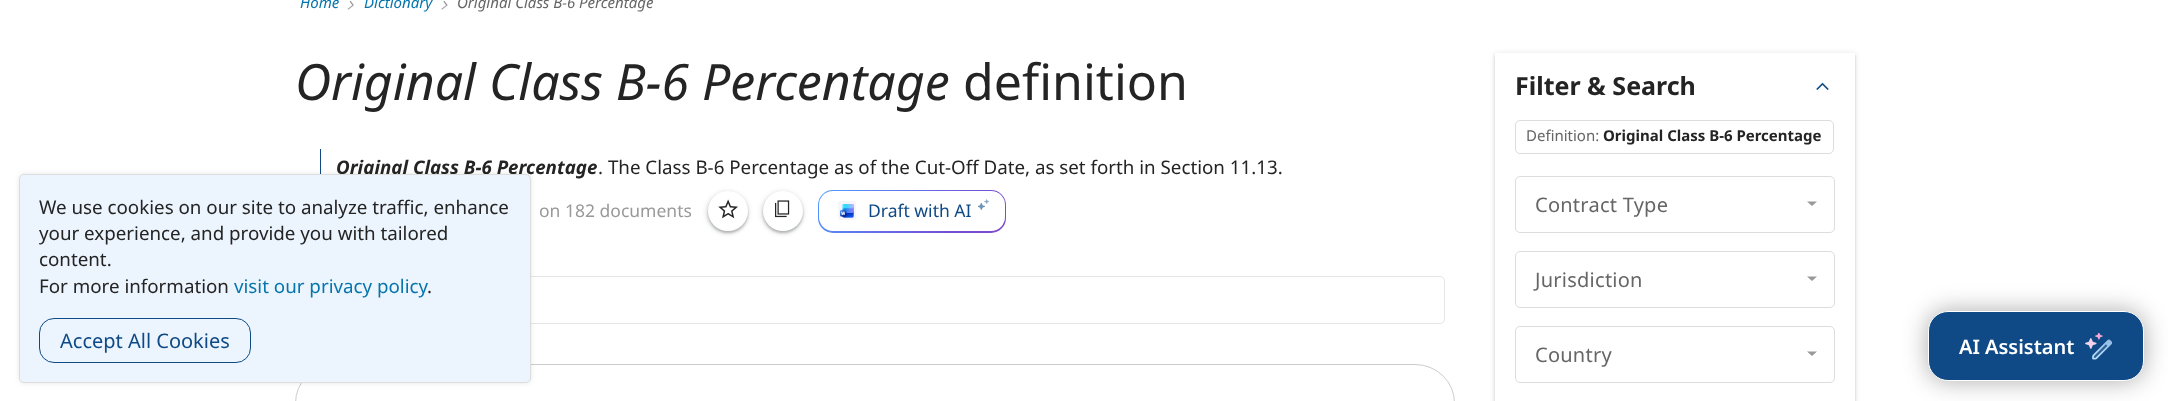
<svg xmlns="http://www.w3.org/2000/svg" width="2168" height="401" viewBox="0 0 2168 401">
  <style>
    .t1 { font: italic 15px Noto Sans; fill: #0675ac; }
    .t2 { font: italic 15px Noto Sans; fill: #666; }
    .t3 { font: italic bold 18.75px Noto Sans; fill: #242424; }
    .t4 { font: 18.75px Noto Sans; fill: #242424; }
    .t5 { font: 18.75px Noto Sans; fill: #0675ac; }
    .t6 { font: 20px Noto Sans; fill: #0f4a86; }
    .t7 { font: italic 50px Noto Sans; fill: #242424; }
    .t8 { font: 50px Noto Sans; fill: #242424; }
    .t9 { font: 17.5px Noto Sans; fill: #999; }
    .t10 { font: 17.5px Noto Sans; fill: #0f4a86; }
    .t11 { font: bold 25px Noto Sans; fill: #242424; }
    .t12 { font: 15px Noto Sans; fill: #666; }
    .t13 { font: bold 15px Noto Sans; fill: #242424; }
    .t14 { font: 20px Noto Sans; letter-spacing: 0.25px; fill: #666; }
    .t15 { font: 600 20px Noto Sans; fill: #fff; }
  </style>
  <defs>
    <linearGradient id="g1" gradientUnits="userSpaceOnUse" x1="1110" y1="-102" x2="2035" y2="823"><stop offset="0" stop-color="#4d9dff"/><stop offset="0.09" stop-color="#7251d7"/><stop offset="0.2" stop-color="#9e3ca8"/><stop offset="0.29" stop-color="#b01983"/><stop offset="0.36" stop-color="#9e3ca8"/><stop offset="0.44" stop-color="#7251d7"/><stop offset="0.55" stop-color="#4d9dff"/><stop offset="0.65" stop-color="#7251d7"/><stop offset="0.76" stop-color="#b01983"/><stop offset="0.84" stop-color="#9e3ca8"/><stop offset="0.96" stop-color="#7251d7"/></linearGradient>
    <clipPath id="clip1"><path d="M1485 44H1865V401H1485ZM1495 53H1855V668H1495Z" clip-rule="evenodd"/></clipPath>
    <clipPath id="clip2"><path d="M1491 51H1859V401H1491ZM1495 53H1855V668H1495Z" clip-rule="evenodd"/></clipPath>
  </defs>
  <rect width="100%" height="100%" fill="#fff"/>
  <text x="300" y="8" class="t1">Home</text>
  <image x="347" y="0" width="7" height="10" href="images/1.png"/>
  <text x="364" y="8" class="t1">Dictionary</text>
  <image x="441" y="0" width="7" height="10" href="images/2.png"/>
  <text x="457" y="8" class="t2">Original Class B-6 Percentage</text>
  <rect x="320" y="149" width="1" height="25" fill="#0f4a86"/>
  <rect x="320.5" y="276.5" width="1124" height="47" rx="4.5" fill="none" stroke="#e6e6e6"/>
  <rect x="295.5" y="364.5" width="1159" height="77" rx="39.5" fill="none" stroke="#ccc"/>
  <rect x="19" y="174" width="512" height="209" rx="5" fill="#0000001a" filter="blur(2.5px)"/>
  <text x="336" y="174" class="t3">Original Class B-6 Percentage</text>
  <rect x="19.5" y="174.5" width="511" height="208" rx="4.5" fill="#ecf4fd" stroke="#ddd"/>
  <text x="39" y="214" class="t4">We use cookies on our site to analyze traffic, enhance</text>
  <text x="39" y="240" class="t4">your experience, and provide you with tailored</text>
  <text x="39" y="266" class="t4">content.</text>
  <text x="39" y="293" class="t4">For more information</text>
  <text x="234" y="293" class="t5">visit our privacy policy</text>
  <text x="427" y="293" class="t4">.</text>
  <rect x="39.5" y="318.5" width="211" height="44" rx="14.5" fill="none" stroke="#0f4a86"/>
  <text x="60" y="348" class="t6">Accept All Cookies</text>
  <text x="295" y="100" class="t7">Original Class B-6 Percentage</text>
  <text x="963" y="100" class="t8">definition</text>
  <text x="598" y="174" class="t4">. The Class B-6 Percentage as of the Cut-Off Date, as set forth in Section 11.13.</text>
  <text x="539" y="217" class="t9">on 182 documents</text>
  <rect x="706" y="191" width="43" height="43" rx="21.5" fill="#3c404326" filter="blur(2px)"/>
  <rect x="708" y="193" width="40" height="40" rx="20" fill="#3c40434d" filter="blur(1px)"/>
  <circle cx="728" cy="211" r="20" fill="#fff"/>
  <image x="718" y="199" width="20" height="20" href="images/3.png"/>
  <rect x="761" y="191" width="43" height="43" rx="21.5" fill="#3c404326" filter="blur(2px)"/>
  <rect x="763" y="193" width="40" height="40" rx="20" fill="#3c40434d" filter="blur(1px)"/>
  <circle cx="783" cy="211" r="20" fill="#fff"/>
  <image x="775" y="200" width="15" height="18" href="images/4.png"/>
  <rect x="818" y="190" width="188" height="43" rx="15" fill="url(#g1)"/>
  <rect x="819" y="191" width="186" height="40" rx="14" fill="#fff"/>
  <image x="838" y="201" width="18" height="19" href="images/5.png"/>
  <text x="868" y="217" class="t10">Draft with AI</text>
  <image x="978" y="199" width="12" height="11" href="images/6.png"/>
  <g clip-path="url(#clip1)">
    <rect x="1495" y="54" width="360" height="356" fill="#0000001f" filter="blur(3px)"/>
  </g>
  <g clip-path="url(#clip2)">
    <rect x="1495" y="55" width="360" height="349" fill="#00000024" filter="blur(1px)"/>
  </g>
  <text x="1515" y="95" class="t11">Filter &amp; Search</text>
  <image x="1816" y="82" width="13" height="8" href="images/7.png"/>
  <rect x="1515.5" y="120.5" width="318" height="33" rx="4.5" fill="none" stroke="#ddd"/>
  <text x="1526" y="141" class="t12">Definition:</text>
  <text x="1603" y="141" class="t13">Original Class B-6 Percentage</text>
  <rect x="1515.5" y="176.5" width="319" height="56" rx="4.5" fill="none" stroke="#ddd"/>
  <text x="1535" y="212" class="t14">Contract Type</text>
  <path d="M1812 206L1807 201.5H1817Z" fill="#999"/>
  <rect x="1515.5" y="251.5" width="319" height="56" rx="4.5" fill="none" stroke="#ddd"/>
  <text x="1535" y="287" class="t14">Jurisdiction</text>
  <path d="M1812 281L1807 276.5H1817Z" fill="#999"/>
  <rect x="1515.5" y="326.5" width="319" height="56" rx="4.5" fill="none" stroke="#ddd"/>
  <text x="1535" y="362" class="t14">Country</text>
  <path d="M1812 356L1807 351.5H1817Z" fill="#999"/>
  <rect x="1928" y="311" width="216" height="70" rx="20" fill="#00000054" filter="blur(12.5px)"/>
  <rect x="1928.5" y="311.5" width="215" height="69" rx="19.5" fill="#0f4a86" stroke="#fff"/>
  <text x="1959" y="354" class="t15">AI Assistant</text>
  <image x="2085" y="333" width="28" height="27" href="images/8.png"/>
</svg>
